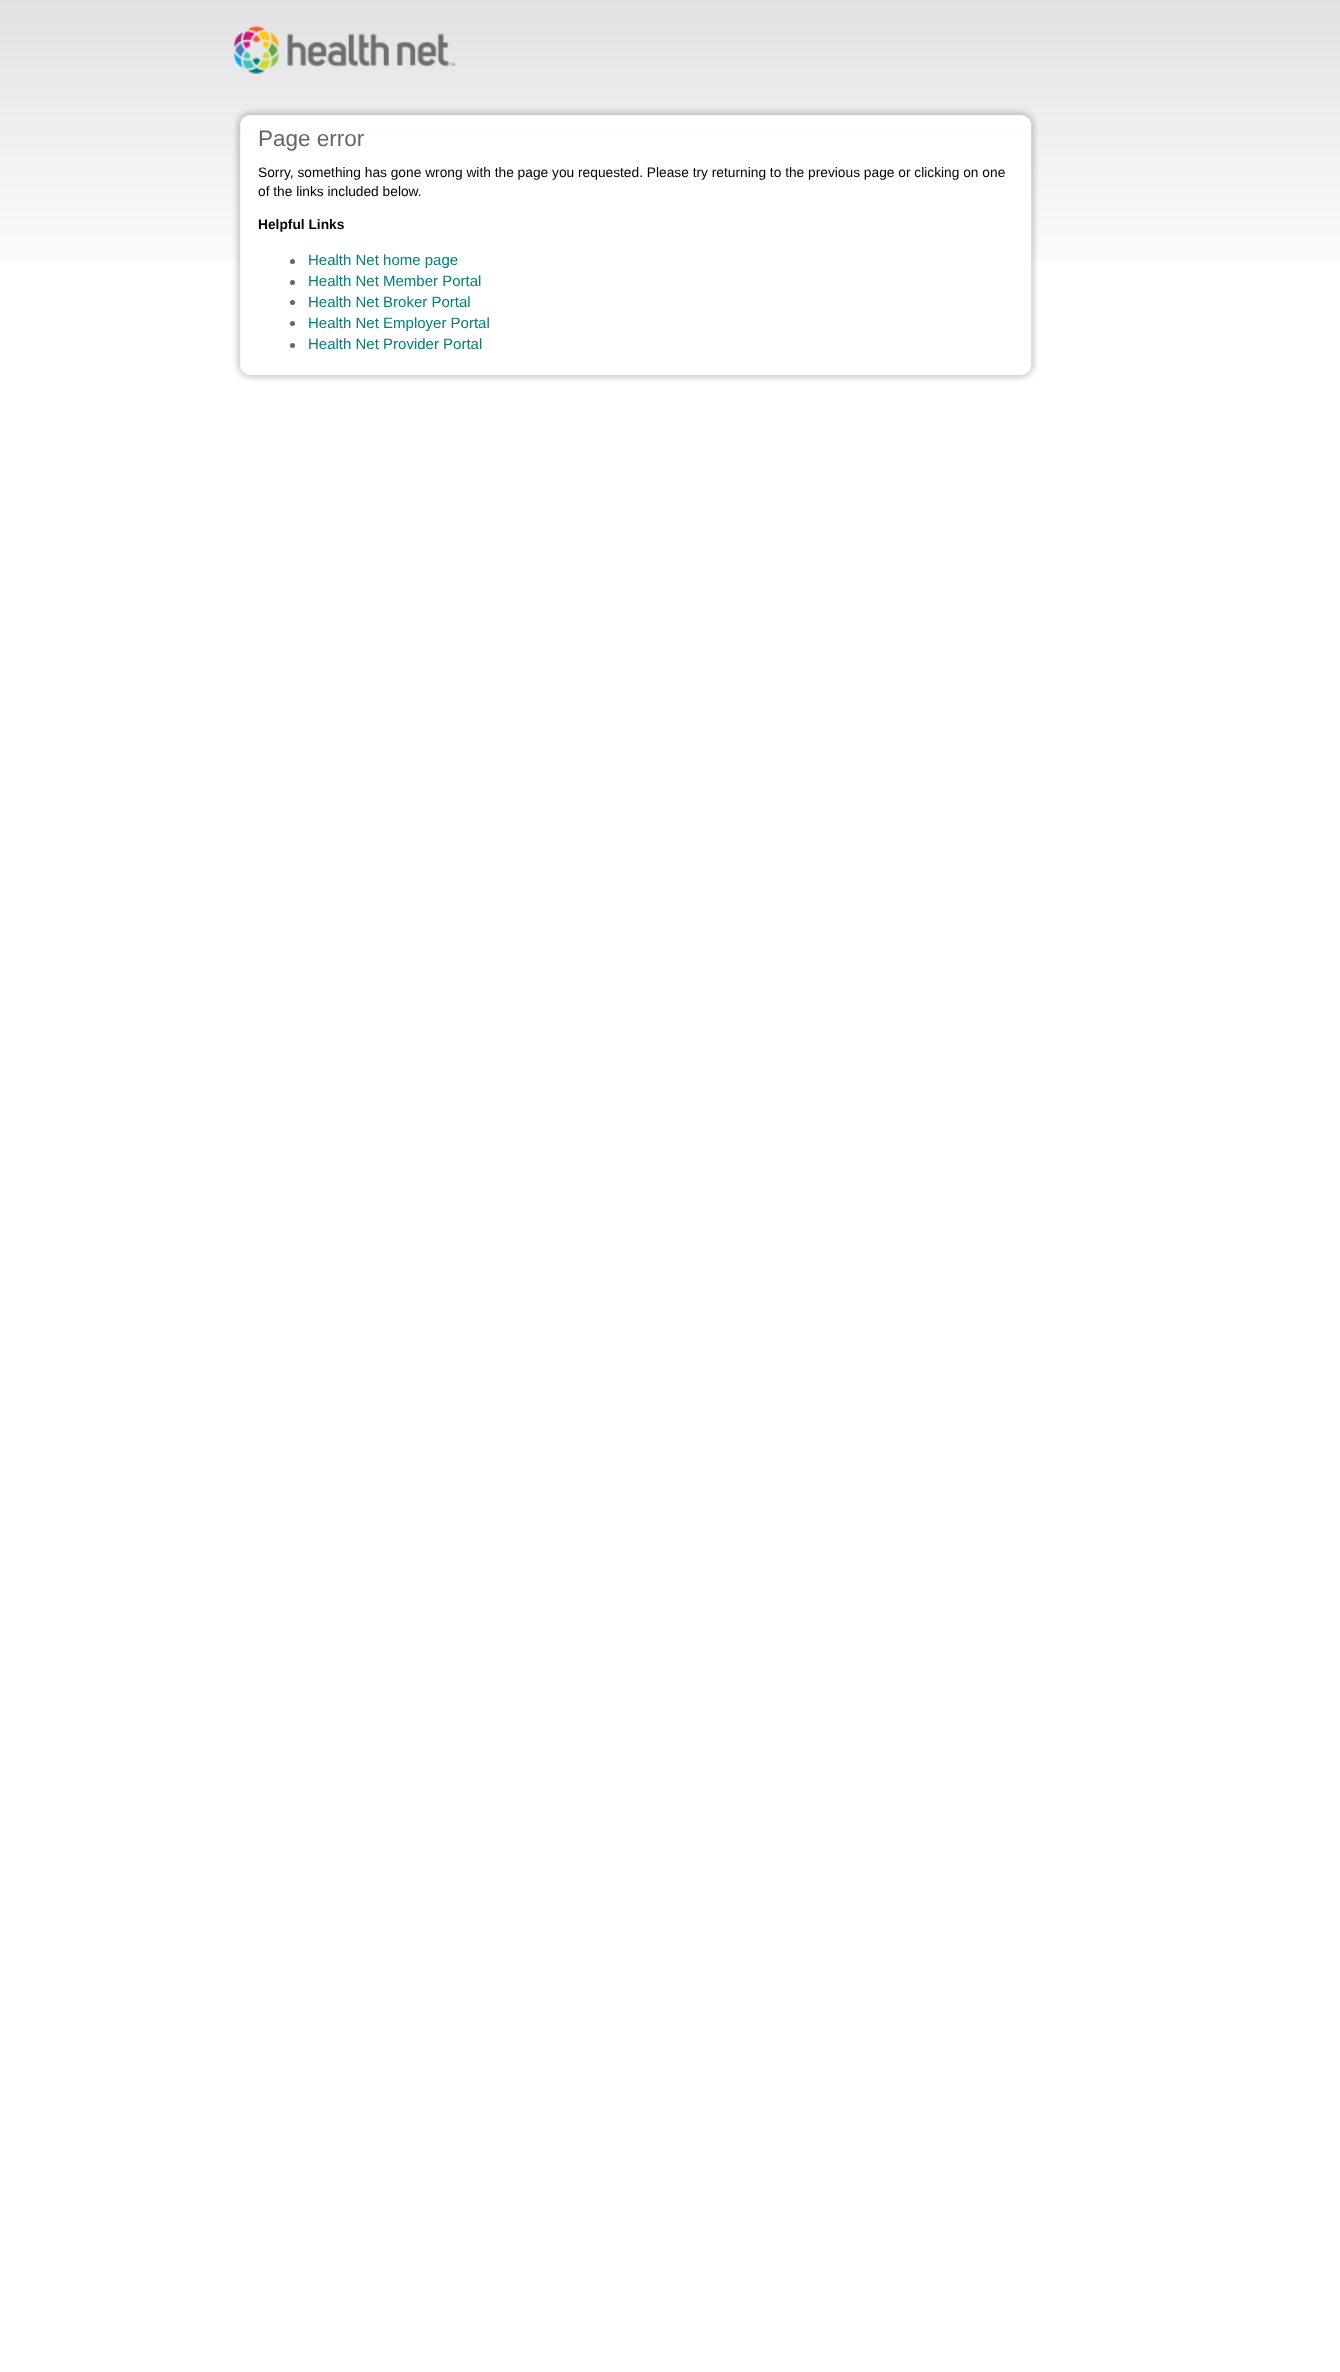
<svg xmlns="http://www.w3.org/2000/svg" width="1340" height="2372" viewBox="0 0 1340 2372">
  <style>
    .t1 { font: 22.5px Liberation Sans; fill: #666; }
    .t2 { font: 13.75px Liberation Sans; fill: #000; }
    .t3 { font: bold 13.75px Liberation Sans; fill: #000; }
    .t4 { font: 15px Liberation Sans; fill: #007e7a; }
  </style>
  <rect width="100%" height="100%" fill="#fff"/>
  <image x="0" y="0" width="1340" height="260" href="images/1.png"/>
  <image x="233" y="26" width="223" height="48" href="images/2.png"/>
  <image x="234" y="108" width="804" height="21" href="images/3.png"/>
  <image x="233" y="128" width="805" height="234" href="images/4.png"/>
  <text x="258" y="146" class="t1">Page error</text>
  <text x="258" y="177" class="t2">Sorry, something has gone wrong with the page you requested. Please try returning to the previous page or clicking on one</text>
  <text x="258" y="196" class="t2">of the links included below.</text>
  <text x="258" y="229" class="t3">Helpful Links</text>
  <circle cx="292.5" cy="261.5" r="2.5" fill="#666"/>
  <text x="308" y="265" class="t4">Health Net home page</text>
  <circle cx="292.5" cy="282.5" r="2.5" fill="#666"/>
  <text x="308" y="286" class="t4">Health Net Member Portal</text>
  <circle cx="292.5" cy="302.5" r="2.5" fill="#666"/>
  <text x="308" y="307" class="t4">Health Net Broker Portal</text>
  <circle cx="292.5" cy="323.5" r="2.5" fill="#666"/>
  <text x="308" y="328" class="t4">Health Net Employer Portal</text>
  <circle cx="292.5" cy="345.5" r="2.5" fill="#666"/>
  <text x="308" y="349" class="t4">Health Net Provider Portal</text>
  <image x="234" y="361" width="804" height="21" href="images/5.png"/>
</svg>
